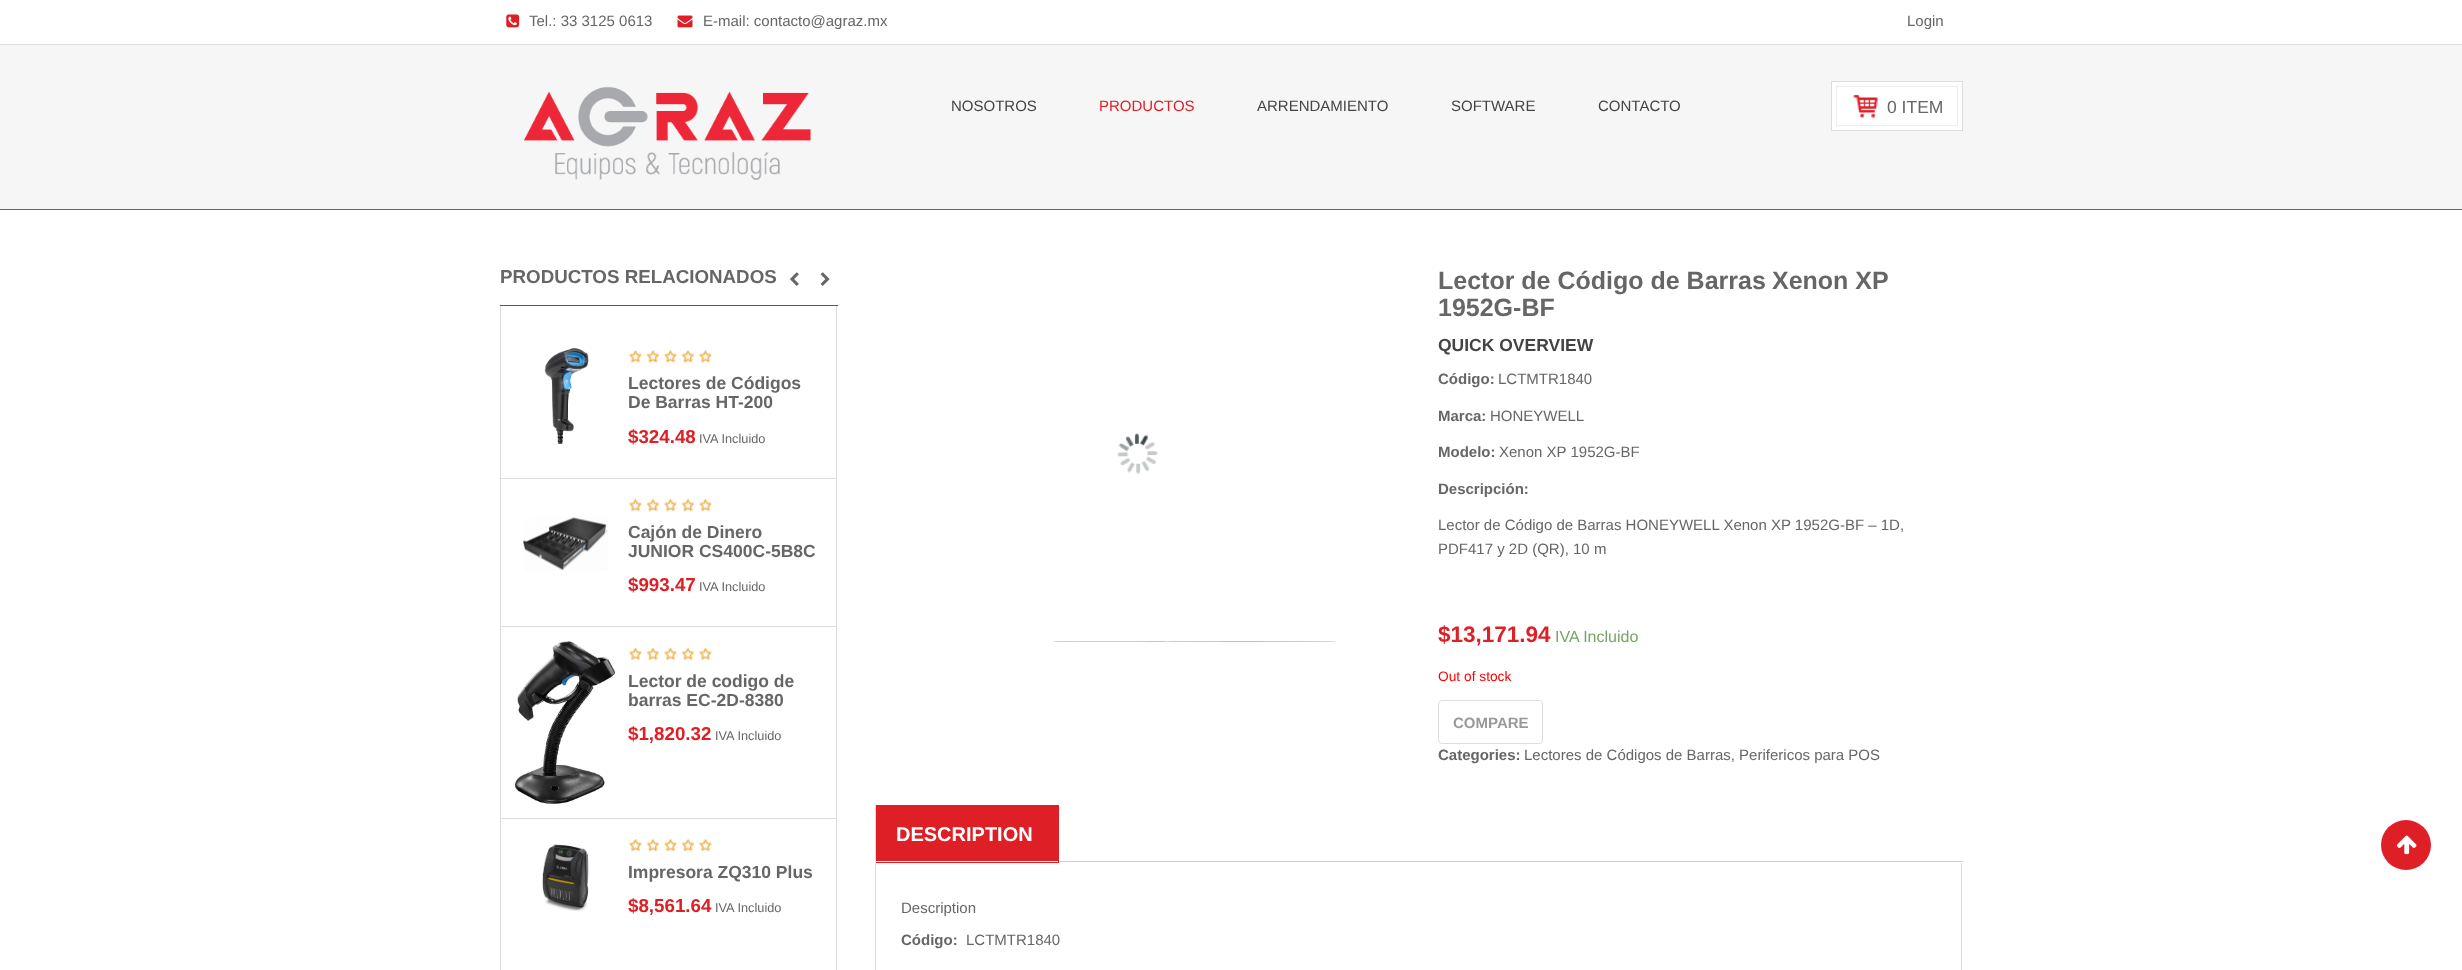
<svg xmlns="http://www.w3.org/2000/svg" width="2462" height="970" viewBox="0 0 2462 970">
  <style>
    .t1 { font: 15px Liberation Sans; fill: #666; }
    .t2 { font: 15px Liberation Sans; fill: #444; }
    .t3 { font: 15px Liberation Sans; fill: #df1f26; }
    .t4 { font: 17.5px Liberation Sans; fill: #666; }
    .t5 { font: bold 18.75px Liberation Sans; fill: #666; }
    .t6 { font: bold 17.5px Liberation Sans; fill: #666; }
    .t7 { font: bold 18.75px Liberation Sans; fill: #df1f26; }
    .t8 { font: 12.75px Liberation Sans; fill: #666; }
    .t9 { font: bold 25px Liberation Sans; fill: #666; }
    .t10 { font: bold 17.5px Liberation Sans; fill: #444; }
    .t11 { font: bold 15px Liberation Sans; fill: #666; }
    .t12 { font: bold 22.5px Liberation Sans; fill: #df1f26; }
    .t13 { font: 16px Liberation Sans; fill: #77a464; }
    .t14 { font: 13.75px Liberation Sans; fill: #f00; }
    .t15 { font: bold 15px Liberation Sans; fill: #999; }
    .t16 { font: bold 20px Liberation Sans; fill: #fff; }
  </style>
  <defs>
    <clipPath id="clip1"><rect x="876" y="805" width="1087" height="58"/></clipPath>
  </defs>
  <rect width="100%" height="100%" fill="#fff"/>
  <rect x="0" y="45" width="2462" height="164" fill="#f6f6f6"/>
  <rect x="0" y="44" width="2462" height="1" fill="#ddd"/>
  <image x="506" y="14" width="14" height="14" href="images/1.png"/>
  <text x="529" y="26" class="t1">Tel.: 33 3125 0613</text>
  <image x="677" y="15" width="16" height="13" href="images/2.png"/>
  <text x="703" y="26" class="t1">E-mail: contacto@agraz.mx</text>
  <text x="1907" y="26" class="t1">Login</text>
  <image x="523" y="86" width="289" height="94" href="images/3.png"/>
  <text x="951" y="111" class="t2">NOSOTROS</text>
  <text x="1099" y="111" class="t3">PRODUCTOS</text>
  <text x="1257" y="111" class="t2">ARRENDAMIENTO</text>
  <text x="1451" y="111" class="t2">SOFTWARE</text>
  <text x="1598" y="111" class="t2">CONTACTO</text>
  <rect x="1831.5" y="81.5" width="131" height="49" fill="#fff" stroke="#ddd"/>
  <rect x="1836.5" y="86.5" width="121" height="39" fill="none" stroke="#eee"/>
  <image x="1853" y="94" width="25" height="24" href="images/4.png"/>
  <text x="1887" y="113" class="t4">0 ITEM</text>
  <rect x="0" y="209" width="2462" height="1" fill="#f32735"/>
  <rect x="500" y="305" width="338" height="1" fill="#df1f26"/>
  <text x="500" y="283" class="t5">PRODUCTOS RELACIONADOS</text>
  <image x="790" y="272" width="9" height="14" href="images/5.png"/>
  <image x="820" y="272" width="10" height="14" href="images/6.png"/>
  <rect x="836" y="306" width="1" height="664" fill="#ddd"/>
  <rect x="500" y="306" width="1" height="664" fill="#ddd"/>
  <rect x="501" y="478" width="335" height="1" fill="#ddd"/>
  <image x="544" y="348" width="45" height="96" href="images/7.png"/>
  <image x="628" y="350" width="84" height="13" href="images/8.png"/>
  <text x="628" y="389" class="t6">Lectores de Códigos</text>
  <text x="628" y="408" class="t6">De Barras HT-200</text>
  <text x="628" y="443" class="t7">$324.48</text>
  <text x="699" y="443" class="t8">IVA Incluido</text>
  <rect x="501" y="626" width="335" height="1" fill="#ddd"/>
  <image x="523" y="517" width="85" height="54" href="images/9.png"/>
  <image x="628" y="498" width="84" height="14" href="images/10.png"/>
  <text x="628" y="538" class="t6">Cajón de Dinero</text>
  <text x="628" y="557" class="t6">JUNIOR CS400C-5B8C</text>
  <text x="628" y="591" class="t7">$993.47</text>
  <text x="699" y="591" class="t8">IVA Incluido</text>
  <rect x="501" y="818" width="335" height="1" fill="#ddd"/>
  <image x="515" y="641" width="100" height="163" href="images/11.png"/>
  <image x="628" y="647" width="84" height="14" href="images/12.png"/>
  <text x="628" y="687" class="t6">Lector de codigo de</text>
  <text x="628" y="706" class="t6">barras EC-2D-8380</text>
  <text x="628" y="740" class="t7">$1,820.32</text>
  <text x="715" y="740" class="t8">IVA Incluido</text>
  <image x="542" y="844" width="47" height="67" href="images/13.png"/>
  <image x="628" y="838" width="84" height="14" href="images/10.png"/>
  <text x="628" y="878" class="t6">Impresora ZQ310 Plus</text>
  <text x="628" y="912" class="t7">$8,561.64</text>
  <text x="715" y="912" class="t8">IVA Incluido</text>
  <image x="1117" y="433" width="41" height="41" href="images/14.png"/>
  <image x="981" y="641" width="356" height="1" href="images/15.png"/>
  <text x="1438" y="289" class="t9">Lector de Código de Barras</text>
  <text x="1772" y="289" class="t9">Xenon XP</text>
  <text x="1438" y="316" class="t9">1952G-BF</text>
  <text x="1438" y="351" class="t10">QUICK OVERVIEW</text>
  <text x="1438" y="384" class="t11">Código:</text>
  <text x="1498" y="384" class="t1">LCTMTR1840</text>
  <text x="1438" y="421" class="t11">Marca:</text>
  <text x="1490" y="421" class="t1">HONEYWELL</text>
  <text x="1438" y="457" class="t11">Modelo:</text>
  <text x="1499" y="457" class="t1">Xenon XP 1952G-BF</text>
  <text x="1438" y="494" class="t11">Descripción:</text>
  <text x="1438" y="530" class="t1">Lector de Código de Barras HONEYWELL Xenon XP 1952G-BF – 1D,</text>
  <text x="1438" y="554" class="t1">PDF417 y 2D (QR), 10 m</text>
  <text x="1438" y="642" class="t12">$13,171.94</text>
  <text x="1555" y="642" class="t13">IVA Incluido</text>
  <text x="1438" y="681" class="t14">Out of stock</text>
  <rect x="1438.5" y="700.5" width="104" height="43" rx="3.5" fill="none" stroke="#ddd"/>
  <text x="1453" y="728" class="t15">COMPARE</text>
  <text x="1438" y="760" class="t11">Categories:</text>
  <text x="1524" y="760" class="t1">Lectores de Códigos de Barras, Perifericos para POS</text>
  <rect x="875" y="805" width="1" height="165" fill="#ddd"/>
  <g clip-path="url(#clip1)">
    <rect x="870.5" y="805.5" width="188" height="57" fill="none" stroke="#df1f26"/>
  </g>
  <rect x="876" y="806" width="182" height="55" fill="#df1f26"/>
  <text x="896" y="841" class="t16">DESCRIPTION</text>
  <rect x="1059" y="861" width="904" height="1" fill="#d3ced2"/>
  <rect x="1961" y="863" width="1" height="107" fill="#ddd"/>
  <text x="901" y="913" class="t1">Description</text>
  <text x="901" y="945" class="t11">Código:</text>
  <text x="966" y="945" class="t1">LCTMTR1840</text>
  <circle cx="2406" cy="845" r="25" fill="#df1f26"/>
  <image x="2396" y="835" width="21" height="20" href="images/16.png"/>
</svg>
